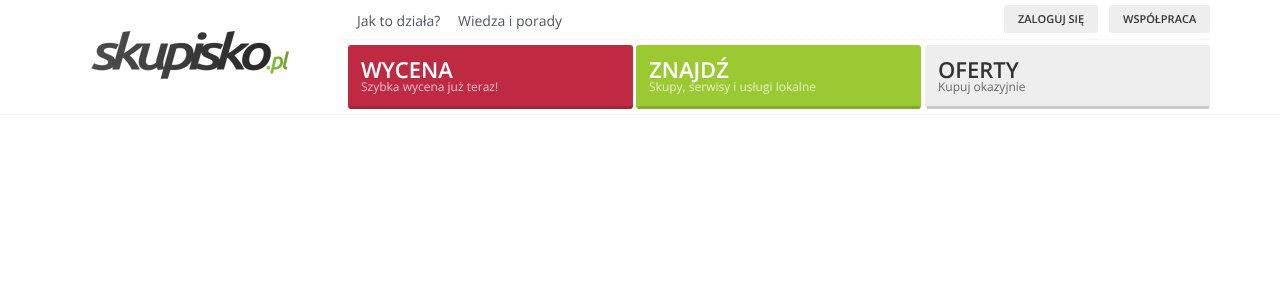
<svg xmlns="http://www.w3.org/2000/svg" width="1280" height="307" viewBox="0 0 1280 307">
  <style>
    .t1 { font: 14px Open Sans; fill: #515662; }
    .t2 { font: 600 11px Open Sans; fill: #333; }
    .t3 { font: 600 22px Open Sans; fill: #fff; }
    .t4 { font: 12px Open Sans; fill: #ecbfc6; }
    .t5 { font: 12px Open Sans; fill: #e1efc2; }
    .t6 { font: 600 22px Open Sans; fill: #333; }
    .t7 { font: 12px Open Sans; fill: #6b6b6b; }
  </style>
  <rect width="100%" height="100%" fill="#fff"/>
  <rect x="0" y="114" width="1280" height="1" fill="#f5f5f5"/>
  <path d="M340 39.5H1210" fill="none" stroke="#eee" stroke-dasharray="1 1"/>
  <text x="357" y="26" class="t1">Jak to działa?</text>
  <text x="458" y="26" class="t1">Wiedza i porady</text>
  <rect x="1004" y="5" width="94" height="28" rx="3" fill="#eee"/>
  <text x="1018" y="23" class="t2">ZALOGUJ SIĘ</text>
  <rect x="1109" y="5" width="101" height="28" rx="3" fill="#eee"/>
  <text x="1123" y="23" class="t2">WSPÓŁPRACA</text>
  <image x="91" y="31" width="198" height="48" href="images/1.png"/>
  <rect x="348" y="45" width="285" height="64" rx="3" fill="#c02942"/>
  <rect x="350" y="106" width="282" height="3" fill="#00000026"/>
  <text x="361" y="78" class="t3">WYCENA</text>
  <text x="361" y="91" class="t4">Szybka wycena już teraz!</text>
  <rect x="636" y="45" width="285" height="64" rx="3" fill="#9bc932"/>
  <rect x="638" y="106" width="282" height="3" fill="#00000026"/>
  <text x="649" y="78" class="t3">ZNAJDŹ</text>
  <text x="649" y="91" class="t5">Skupy, serwisy i usługi lokalne</text>
  <rect x="925" y="45" width="285" height="64" rx="3" fill="#eee"/>
  <rect x="927" y="106" width="282" height="3" fill="#00000026"/>
  <text x="938" y="78" class="t6">OFERTY</text>
  <text x="938" y="91" class="t7">Kupuj okazyjnie</text>
</svg>
